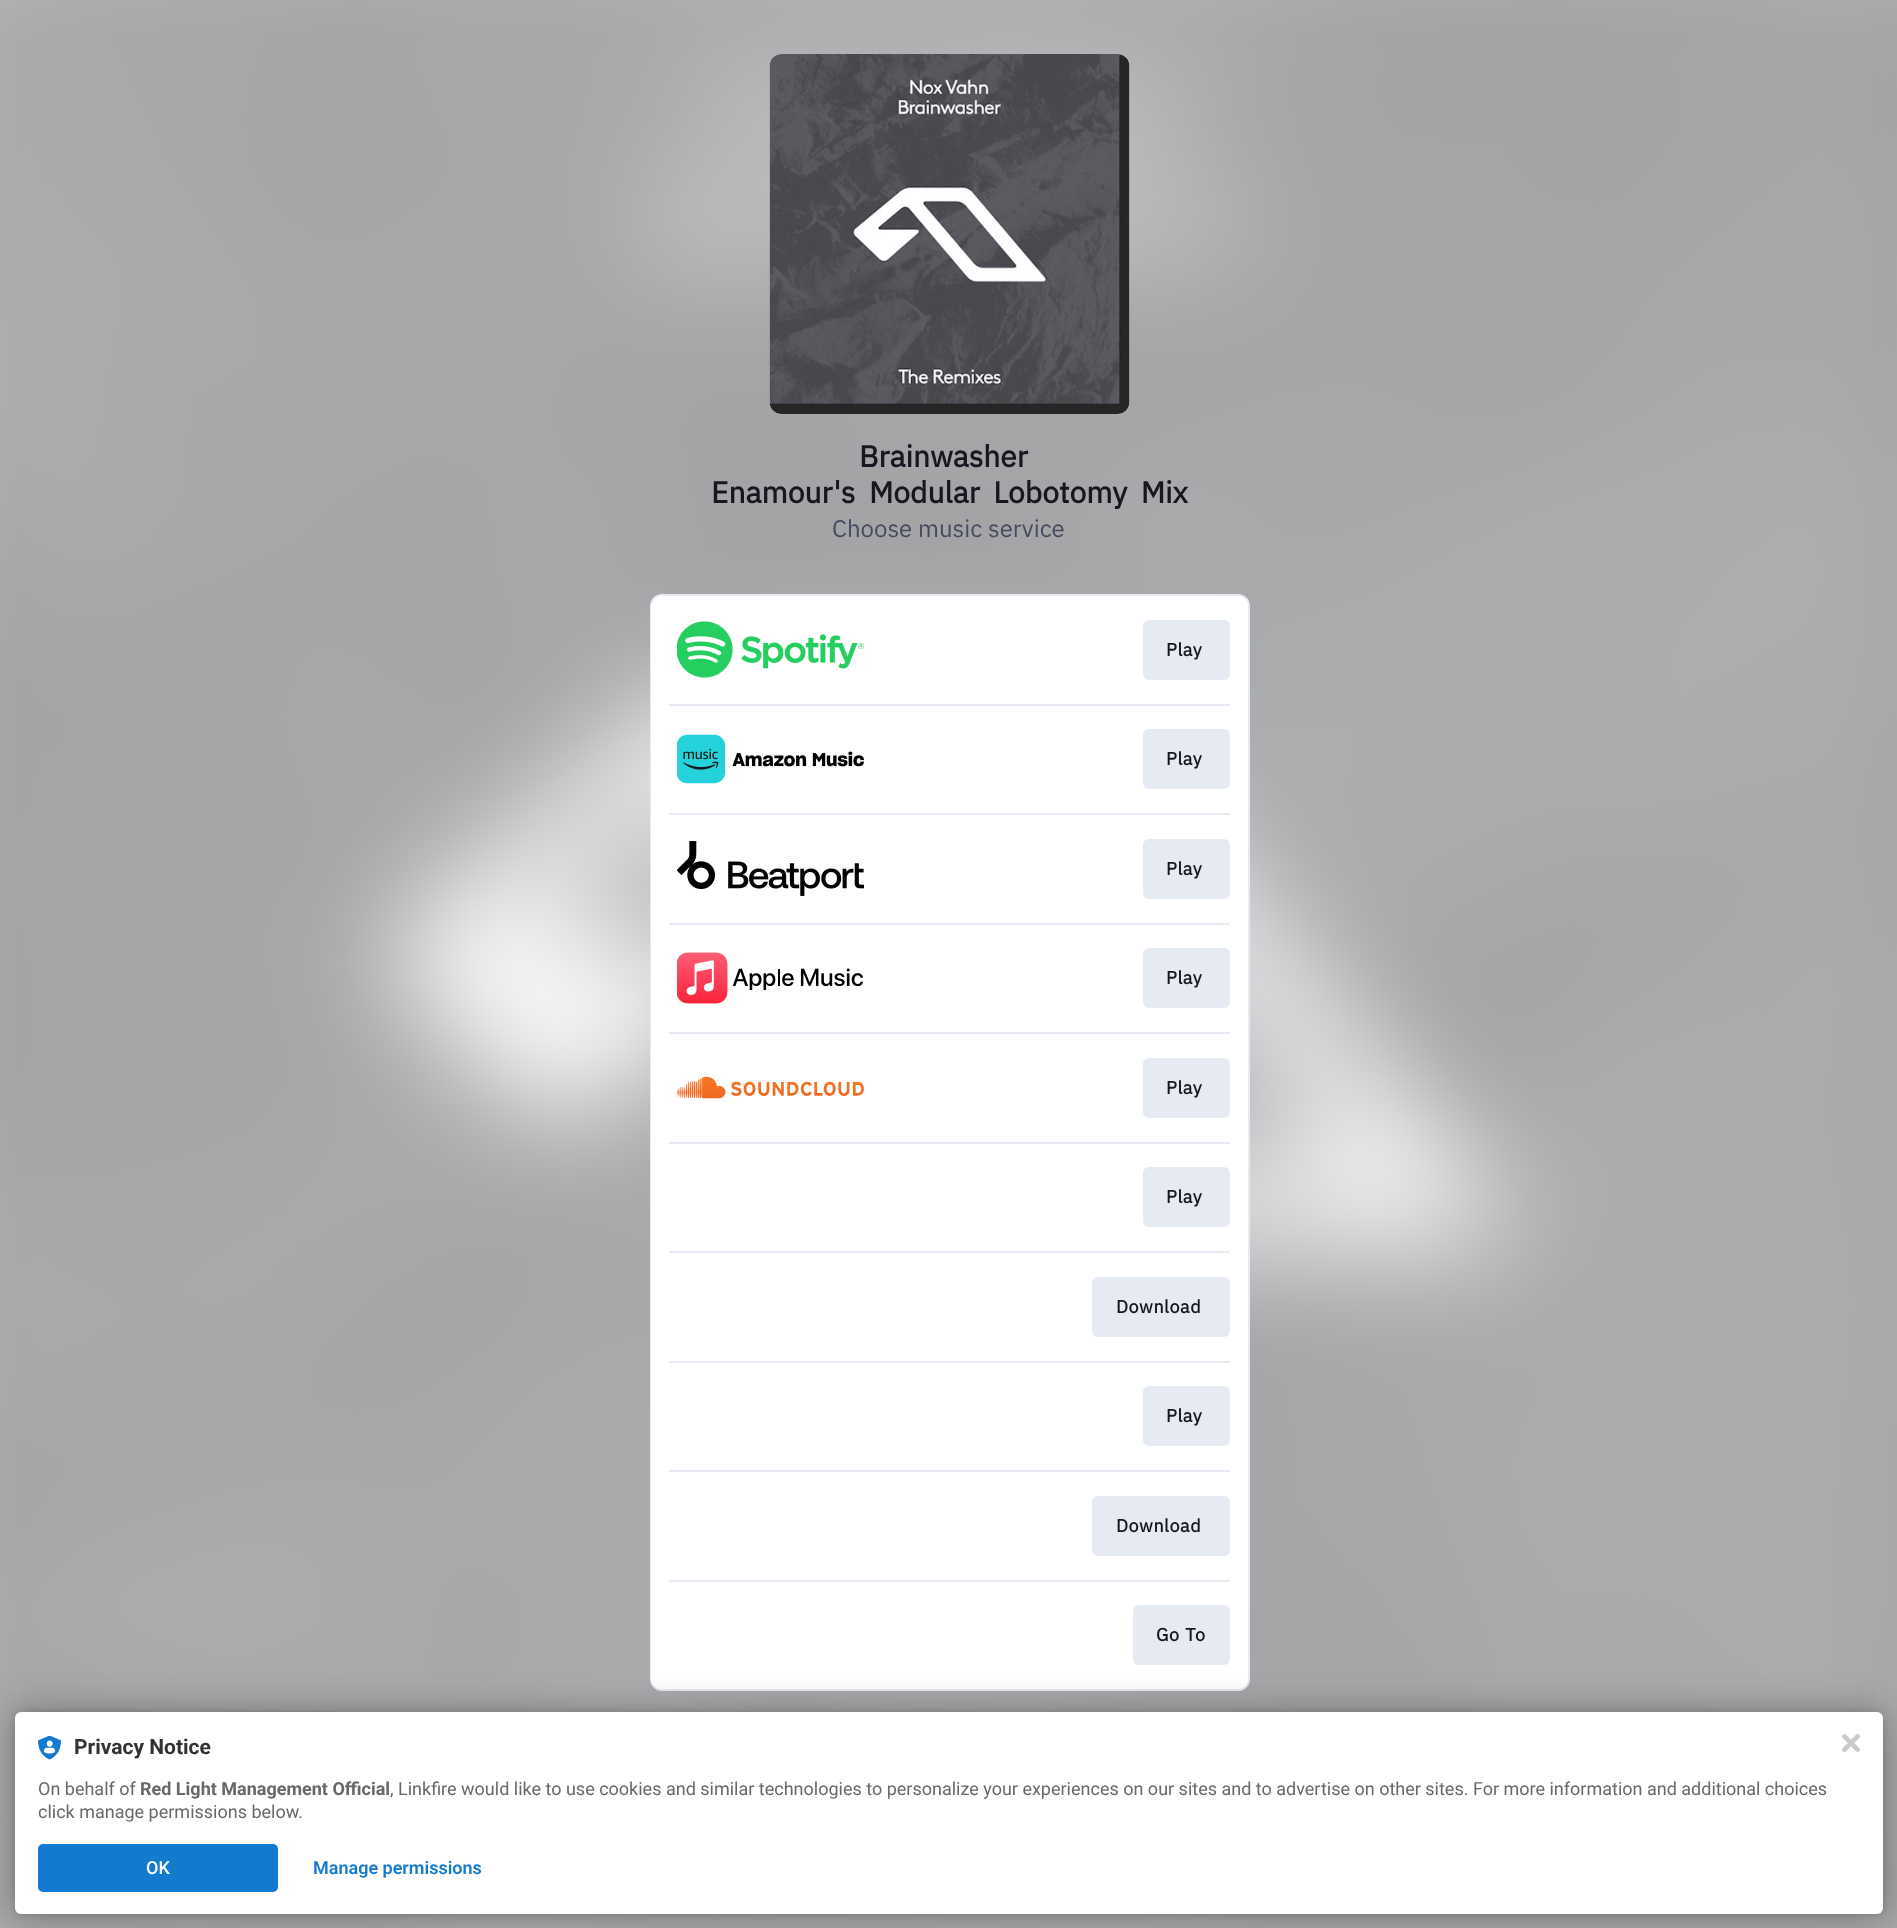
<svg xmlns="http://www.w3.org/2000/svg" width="1897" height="1928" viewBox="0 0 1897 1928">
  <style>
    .t1 { font: bold 30px IBM Plex Sans; fill: #181721; }
    .t2 { font: 24px IBM Plex Sans; fill: #454b5f; }
    .t3 { font: bold 18px IBM Plex Sans; letter-spacing: 0.5px; fill: #181721; }
    .t4 { font: bold 21px Roboto; fill: #323232; }
    .t5 { font: 18px Roboto; fill: #686868; }
    .t6 { font: bold 18px Roboto; fill: #686868; }
    .t7 { font: 500 18px Roboto; fill: #fff; }
    .t8 { font: 600 18px Roboto; fill: #137bcf; }
  </style>
  <rect width="100%" height="100%" fill="#fff"/>
  <image x="0" y="0" width="1897" height="1928" href="images/1.png"/>
  <image x="769" y="54" width="361" height="360" href="images/2.png"/>
  <text x="859" y="467" class="t1">Brainwasher</text>
  <text x="711" y="503" word-spacing="6.5" class="t1">Enamour's Modular Lobotomy Mix</text>
  <text x="832" y="537" class="t2">Choose music service</text>
  <rect x="651" y="595" width="598" height="1095" rx="11" fill="#fff" stroke="#e6eaf2" stroke-width="2"/>
  <rect x="651" y="596" width="597" height="1093" rx="11" fill="#fff"/>
  <image x="677" y="621" width="187" height="57" href="images/3.png"/>
  <rect x="1143" y="620" width="87" height="60" rx="6" fill="#e6eaf2"/>
  <text x="1166" y="656" class="t3">Play</text>
  <rect x="669" y="704" width="561" height="2" fill="#e6eaf2"/>
  <image x="677" y="734" width="187" height="50" href="images/4.png"/>
  <rect x="1143" y="729" width="87" height="60" rx="6" fill="#e6eaf2"/>
  <text x="1166" y="765" class="t3">Play</text>
  <rect x="669" y="813" width="561" height="2" fill="#e6eaf2"/>
  <image x="677" y="841" width="187" height="55" href="images/5.png"/>
  <rect x="1143" y="839" width="87" height="60" rx="6" fill="#e6eaf2"/>
  <text x="1166" y="875" class="t3">Play</text>
  <rect x="669" y="923" width="561" height="2" fill="#e6eaf2"/>
  <image x="677" y="952" width="186" height="52" href="images/6.png"/>
  <rect x="1143" y="948" width="87" height="60" rx="6" fill="#e6eaf2"/>
  <text x="1166" y="984" class="t3">Play</text>
  <rect x="669" y="1032" width="561" height="2" fill="#e6eaf2"/>
  <image x="677" y="1076" width="187" height="23" href="images/7.png"/>
  <rect x="1143" y="1058" width="87" height="60" rx="6" fill="#e6eaf2"/>
  <text x="1166" y="1094" class="t3">Play</text>
  <rect x="669" y="1142" width="561" height="2" fill="#e6eaf2"/>
  <rect x="1143" y="1167" width="87" height="60" rx="6" fill="#e6eaf2"/>
  <text x="1166" y="1203" class="t3">Play</text>
  <rect x="669" y="1251" width="561" height="2" fill="#e6eaf2"/>
  <rect x="1092" y="1277" width="138" height="60" rx="6" fill="#e6eaf2"/>
  <text x="1116" y="1313" class="t3">Download</text>
  <rect x="669" y="1361" width="561" height="2" fill="#e6eaf2"/>
  <rect x="1143" y="1386" width="87" height="60" rx="6" fill="#e6eaf2"/>
  <text x="1166" y="1422" class="t3">Play</text>
  <rect x="669" y="1470" width="561" height="2" fill="#e6eaf2"/>
  <rect x="1092" y="1496" width="138" height="60" rx="6" fill="#e6eaf2"/>
  <text x="1116" y="1532" class="t3">Download</text>
  <rect x="669" y="1580" width="561" height="2" fill="#e6eaf2"/>
  <rect x="1133" y="1605" width="97" height="60" rx="6" fill="#e6eaf2"/>
  <text x="1156" y="1641" word-spacing="1" class="t3">Go To</text>
  <rect x="15" y="1712" width="1868" height="202" rx="6" fill="#0000001f" filter="blur(3px)"/>
  <rect x="15" y="1712" width="1868" height="202" rx="6" fill="#0000004d" filter="blur(18px)"/>
  <rect x="15" y="1712" width="1868" height="202" rx="6" fill="#fff"/>
  <image x="38" y="1736" width="23" height="24" href="images/8.png"/>
  <text x="74" y="1754" class="t4">Privacy Notice</text>
  <text x="38" y="1795" class="t5">On behalf of</text>
  <text x="140" y="1795" class="t6">Red Light Management Official</text>
  <text x="390" y="1795" class="t5">, Linkfire would like to use cookies and similar technologies to personalize your experiences on our sites and to advertise on other sites. For more information and additional choices</text>
  <text x="38" y="1818" class="t5">click manage permissions below.</text>
  <rect x="38" y="1844" width="240" height="48" rx="5" fill="#137bcf"/>
  <text x="146" y="1874" class="t7">OK</text>
  <text x="313" y="1874" class="t8">Manage permissions</text>
  <image x="1842" y="1734" width="18" height="18" href="images/9.png"/>
</svg>
